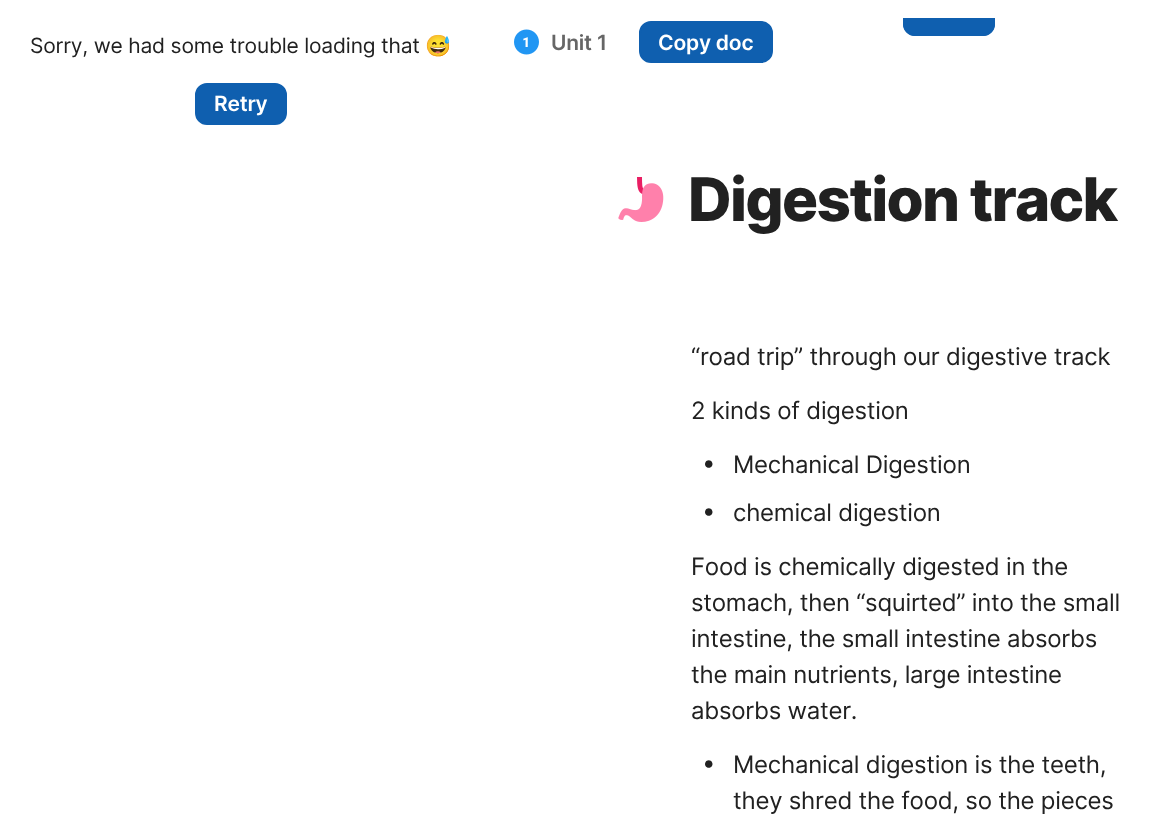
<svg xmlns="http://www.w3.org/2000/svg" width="1151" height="829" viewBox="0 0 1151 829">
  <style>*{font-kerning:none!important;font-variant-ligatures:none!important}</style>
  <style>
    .t1 { font: 21px Inter; letter-spacing: -0.2px; fill: #212121; }
    .t2 { font: 21px Noto Color Emoji; letter-spacing: -0.2px; fill: #212121; }
    .t3 { font: 600 21px Inter; letter-spacing: -0.2px; fill: #fff; }
    .t4 { font: 600 21px Inter; letter-spacing: -0.2px; fill: #666; }
    .t5 { font: 800 60px Inter; letter-spacing: -1.75px; fill: #212121; }
    .t6 { font: 24px Inter; letter-spacing: -0.25px; fill: #212121; }
  </style>
  <defs>
    <clipPath id="clip1"><rect x="609" y="18" width="516" height="48"/></clipPath>
  </defs>
  <rect width="100%" height="100%" fill="#fff"/>
  <text x="30" y="53" class="t1">Sorry, we had some trouble loading that</text>
  <text x="425" y="53" class="t2">😅</text>
  <rect x="196" y="84" width="90" height="40" rx="11" fill="#0f5faf" stroke="#0f5faf" stroke-width="2"/>
  <text x="214" y="111" class="t3">Retry</text>
  <image x="514" y="29" width="25" height="26" href="images/1.png"/>
  <text x="551" y="50" class="t4">Unit 1</text>
  <path d="M903 18H995V24C995 30.5 989.5 36 983 36H915C908.5 36 903 30.5 903 24Z" fill="#0f5faf"/>
  <g clip-path="url(#clip1)">
    <rect x="904" y="-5" width="90" height="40" rx="11" fill="none" stroke="#0f5faf" stroke-width="2"/>
  </g>
  <rect x="640" y="22" width="132" height="40" rx="11" fill="#0f5faf" stroke="#0f5faf" stroke-width="2"/>
  <text x="658" y="50" class="t3">Copy doc</text>
  <image x="618" y="177" width="46" height="45" href="images/2.png"/>
  <text x="688" y="221" class="t5">Digestion track</text>
  <text x="691" y="365" class="t6">“road trip” through our digestive track</text>
  <text x="691" y="419" class="t6">2 kinds of digestion</text>
  <text x="702" y="471" class="t6">•</text>
  <text x="733" y="473" class="t6">Mechanical Digestion</text>
  <text x="702" y="519" class="t6">•</text>
  <text x="733" y="521" class="t6">chemical digestion</text>
  <text x="691" y="575" class="t6">Food is chemically digested in the</text>
  <text x="691" y="611" class="t6">stomach, then “squirted” into the small</text>
  <text x="691" y="647" class="t6">intestine, the small intestine absorbs</text>
  <text x="691" y="683" class="t6">the main nutrients, large intestine</text>
  <text x="691" y="719" class="t6">absorbs water.</text>
  <text x="702" y="771" class="t6">•</text>
  <text x="733" y="773" class="t6">Mechanical digestion is the teeth,</text>
  <text x="733" y="809" class="t6">they shred the food, so the pieces</text>
</svg>
